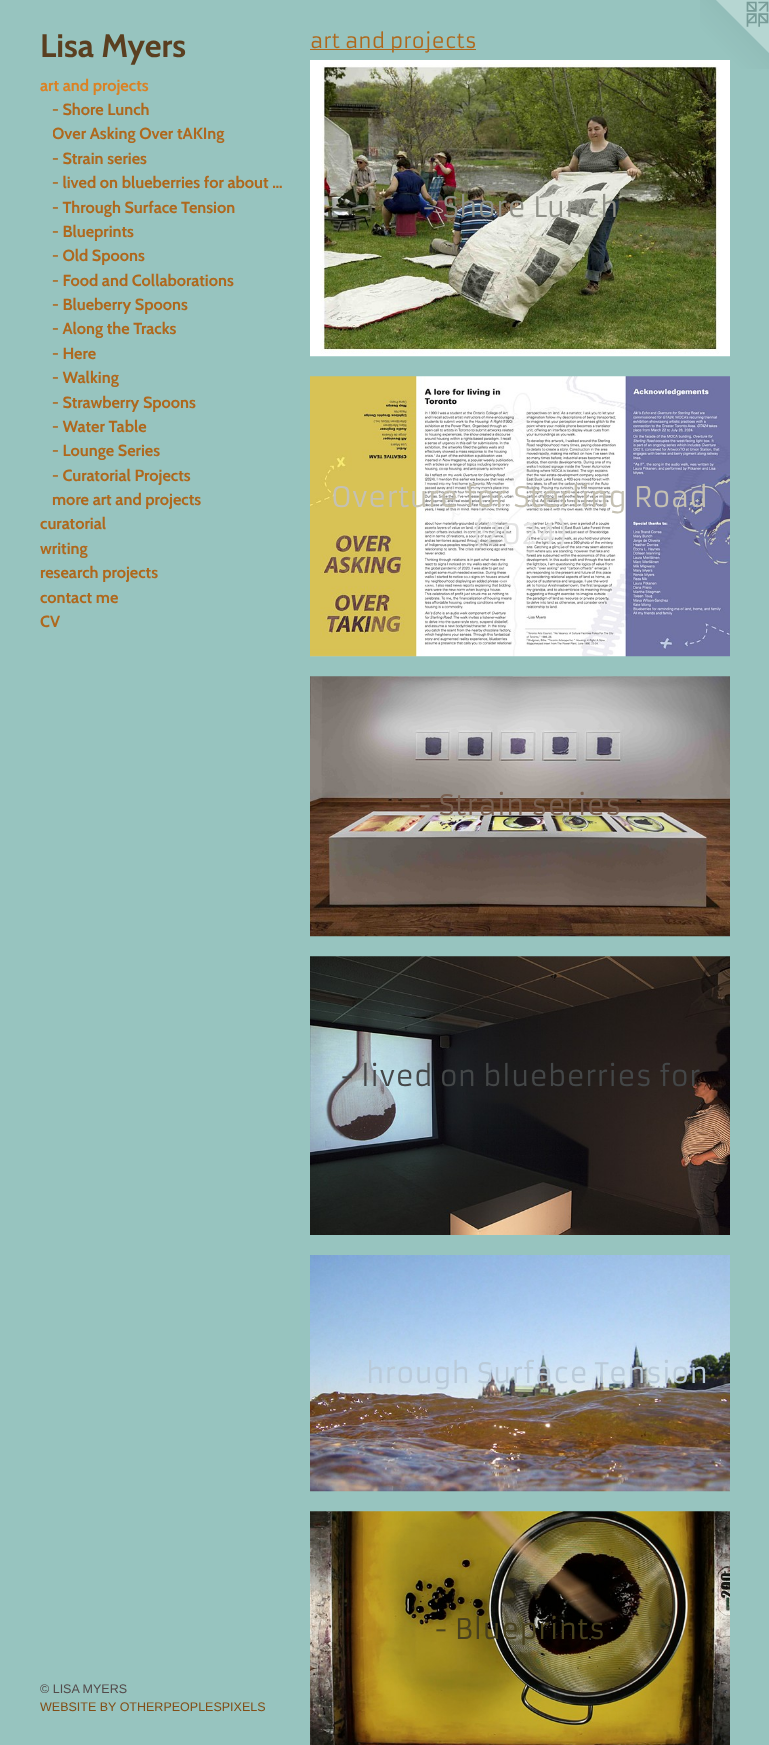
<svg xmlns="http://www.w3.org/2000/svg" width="769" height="1745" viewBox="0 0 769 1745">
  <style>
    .t1 { font: bold 32.5px Cabin; fill: #5a3f20; }
    .t2 { font: bold 16.25px Cabin; fill: #db8224; }
    .t3 { font: bold 16.25px Cabin; fill: #af681d; }
    .t4 { font: 12.5px Liberation Sans; fill: #534b4b; }
    .t5 { font: 12.5px Liberation Sans; fill: #824e17; }
    .t6 { font: 20px Armata; fill: #af681d; }
    .t7 { font: 27.75px Armata; fill: #909188; }
    .t8 { font: 27.75px Armata; fill: #c5c1b3; }
    .t9 { font: 27.75px Armata; fill: #e3e3e3; }
    .t10 { font: 27.75px Armata; fill: #7a6151; }
    .t11 { font: 27.75px Armata; fill: #444748; }
    .t12 { font: 27.75px Armata; fill: #b9cad9; }
    .t13 { font: 27.75px Armata; fill: #48401e; }
  </style>
  <defs>
    <clipPath id="clip1"><rect x="53" y="123" width="237" height="23"/></clipPath>
  </defs>
  <rect width="100%" height="100%" fill="#97c4bf"/>
  <text x="40" y="57" class="t1">Lisa Myers</text>
  <text x="40" y="91" class="t2">art and projects</text>
  <text x="52" y="115" class="t3">- Shore Lunch</text>
  <g clip-path="url(#clip1)">
    <text x="52" y="139" class="t3">Over Asking Over tAKIng</text>
  </g>
  <text x="52" y="164" class="t3">- Strain series</text>
  <text x="52" y="188" class="t3">- lived on blueberries for about …</text>
  <text x="52" y="213" class="t3">- Through Surface Tension</text>
  <text x="52" y="237" class="t3">- Blueprints</text>
  <text x="52" y="261" class="t3">- Old Spoons</text>
  <text x="52" y="286" class="t3">- Food and Collaborations</text>
  <text x="52" y="310" class="t3">- Blueberry Spoons</text>
  <text x="52" y="334" class="t3">- Along the Tracks</text>
  <text x="52" y="359" class="t3">- Here</text>
  <text x="52" y="383" class="t3">- Walking</text>
  <text x="52" y="408" class="t3">- Strawberry Spoons</text>
  <text x="52" y="432" class="t3">- Water Table</text>
  <text x="52" y="456" class="t3">- Lounge Series</text>
  <text x="52" y="481" class="t3">- Curatorial Projects</text>
  <text x="52" y="505" class="t3">more art and projects</text>
  <text x="40" y="529" class="t3">curatorial</text>
  <text x="40" y="554" class="t3">writing</text>
  <text x="40" y="578" class="t3">research projects</text>
  <text x="40" y="603" class="t3">contact me</text>
  <text x="40" y="627" class="t3">CV</text>
  <text x="40" y="1693" class="t4">© LISA MYERS</text>
  <text x="40" y="1711" class="t5">WEBSITE BY OTHERPEOPLESPIXELS</text>
  <rect x="310" y="49" width="166" height="1" fill="#af681d"/>
  <text x="310" y="48" class="t6">art and projects</text>
  <image x="700" y="0" width="69" height="69" href="images/7.png"/>
  <image x="310" y="60" width="420" height="297" href="images/1.png"/>
  <text x="422" y="217" class="t7">- Shore Lunch</text>
  <image x="310" y="376" width="420" height="281" href="images/2.png"/>
  <text x="331" y="507" class="t8">Overture for Sterling Road</text>
  <text x="473" y="544" class="t9">(2024)</text>
  <image x="310" y="676" width="420" height="261" href="images/3.png"/>
  <text x="418" y="815" class="t10">- Strain series</text>
  <image x="310" y="956" width="420" height="279" href="images/4.png"/>
  <text x="340" y="1086" class="t11">- lived on blueberries for</text>
  <image x="310" y="1255" width="420" height="237" href="images/5.png"/>
  <text x="366" y="1383" class="t12">hrough Surface Tension</text>
  <image x="310" y="1511" width="420" height="234" href="images/6.png"/>
  <text x="434" y="1639" class="t13">- Blueprints</text>
</svg>
